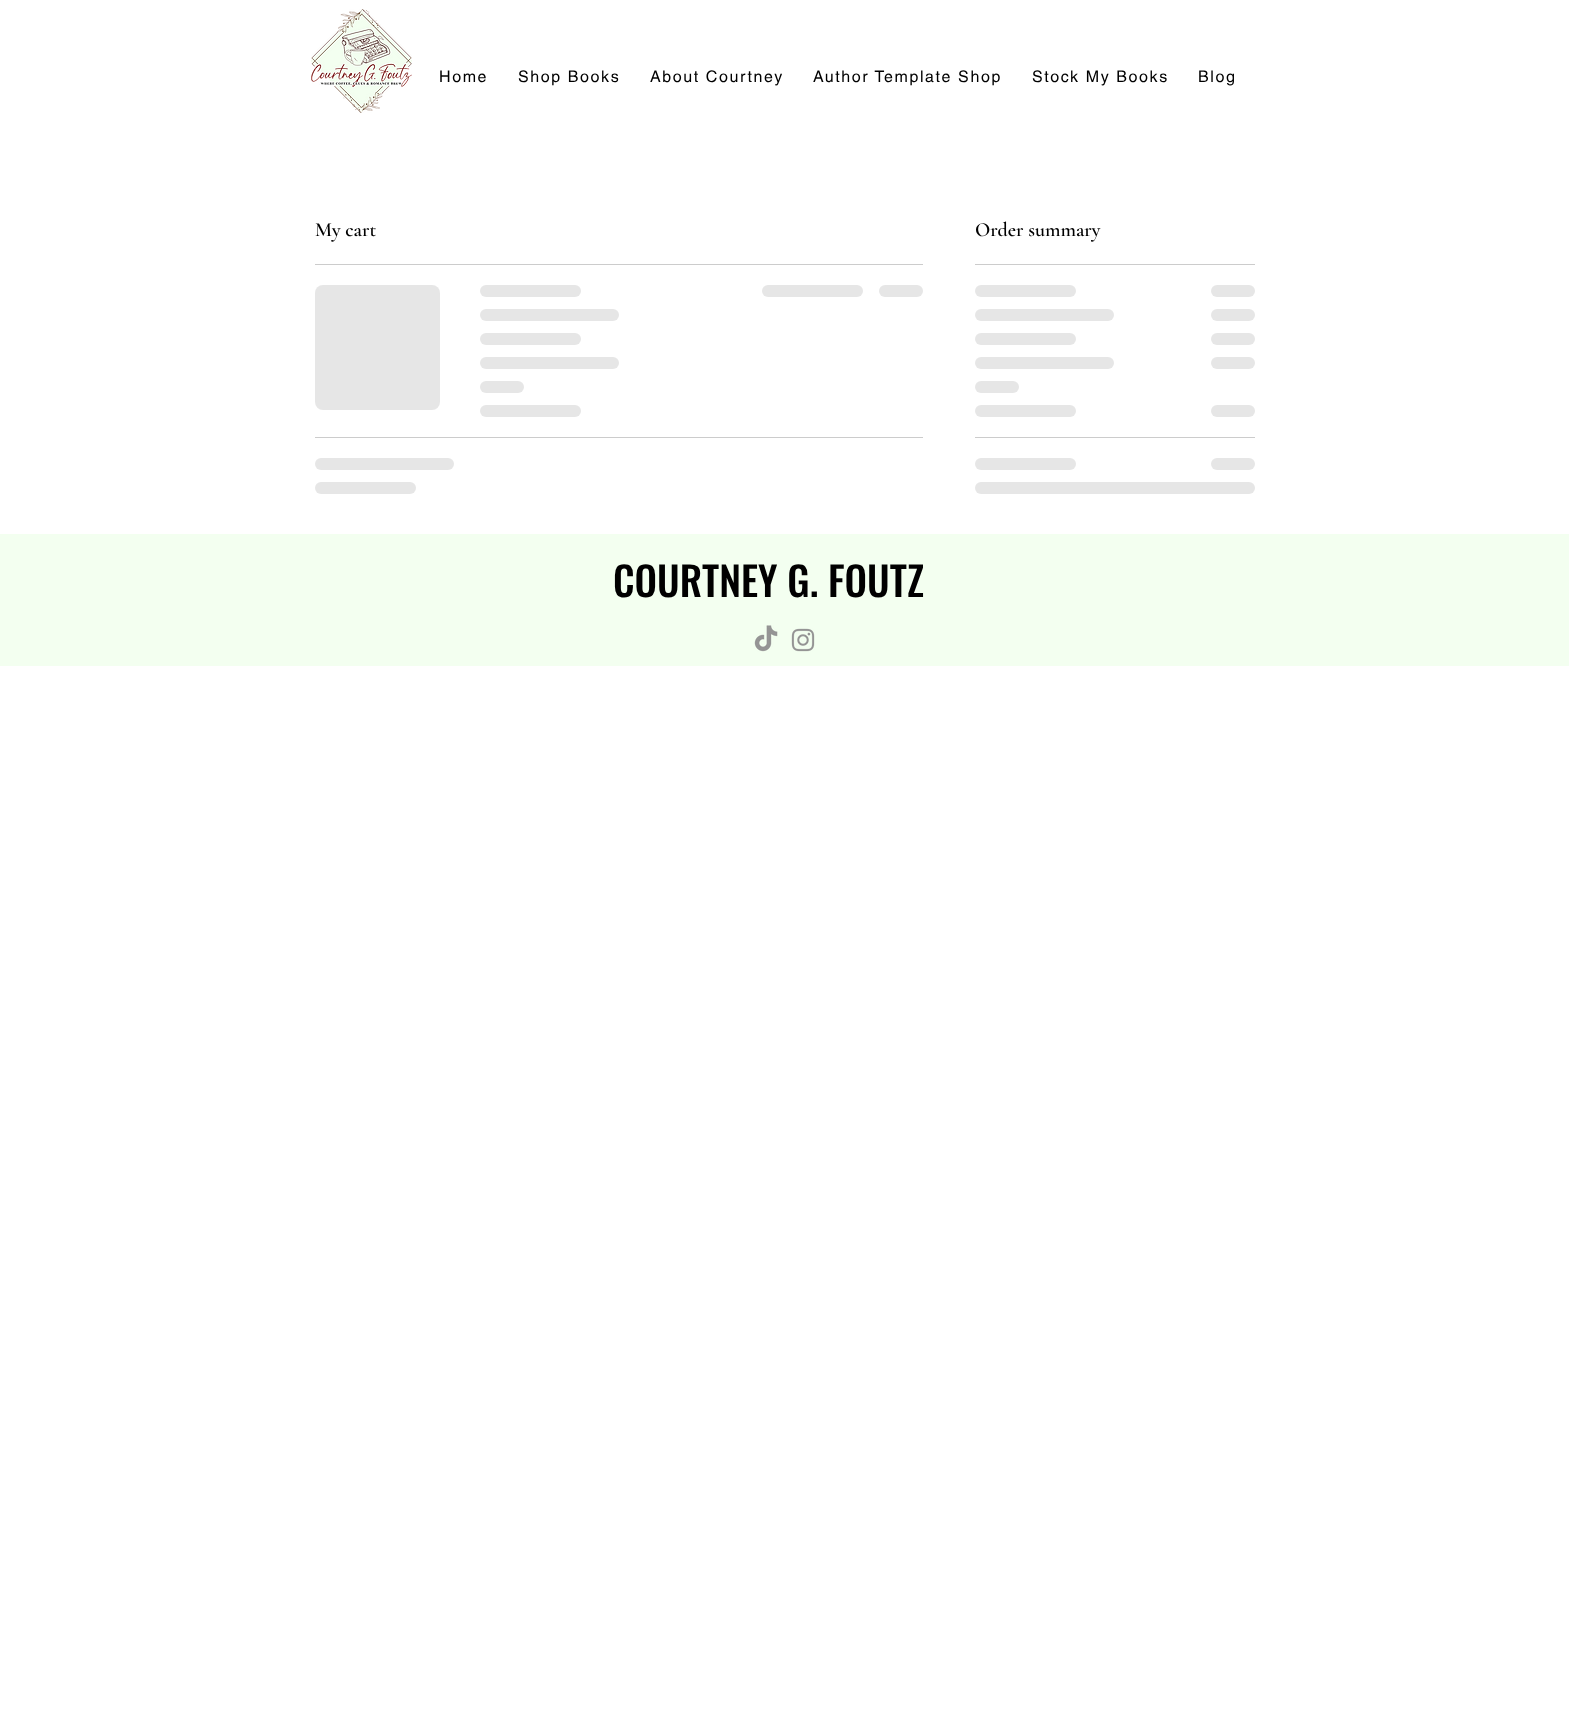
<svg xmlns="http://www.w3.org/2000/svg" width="1569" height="1725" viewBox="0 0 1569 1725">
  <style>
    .t1 { font: 16px helvetica; letter-spacing: 1.6px; fill: #000; }
    .t2 { font: 600 20px Cormorant Garamond; fill: #000; }
    .t3 { font: 500 40px Oswald; fill: #000; }
  </style>
  <defs>
    <linearGradient id="g1" gradientUnits="userSpaceOnUse" x1="315" y1="348" x2="815" y2="348"><stop offset="0.25" stop-color="#e6e6e6"/><stop offset="0.37" stop-color="#ccc"/><stop offset="0.63" stop-color="#e6e6e6"/></linearGradient>
    <linearGradient id="g2" gradientUnits="userSpaceOnUse" x1="480" y1="291" x2="884" y2="291"><stop offset="0.25" stop-color="#e6e6e6"/><stop offset="0.37" stop-color="#ccc"/><stop offset="0.63" stop-color="#e6e6e6"/></linearGradient>
    <linearGradient id="g3" gradientUnits="userSpaceOnUse" x1="480" y1="315" x2="1036" y2="315"><stop offset="0.25" stop-color="#e6e6e6"/><stop offset="0.37" stop-color="#ccc"/><stop offset="0.63" stop-color="#e6e6e6"/></linearGradient>
    <linearGradient id="g4" gradientUnits="userSpaceOnUse" x1="480" y1="339" x2="884" y2="339"><stop offset="0.25" stop-color="#e6e6e6"/><stop offset="0.37" stop-color="#ccc"/><stop offset="0.63" stop-color="#e6e6e6"/></linearGradient>
    <linearGradient id="g5" gradientUnits="userSpaceOnUse" x1="480" y1="363" x2="1036" y2="363"><stop offset="0.25" stop-color="#e6e6e6"/><stop offset="0.37" stop-color="#ccc"/><stop offset="0.63" stop-color="#e6e6e6"/></linearGradient>
    <linearGradient id="g6" gradientUnits="userSpaceOnUse" x1="480" y1="387" x2="656" y2="387"><stop offset="0.25" stop-color="#e6e6e6"/><stop offset="0.37" stop-color="#ccc"/><stop offset="0.63" stop-color="#e6e6e6"/></linearGradient>
    <linearGradient id="g7" gradientUnits="userSpaceOnUse" x1="480" y1="411" x2="884" y2="411"><stop offset="0.25" stop-color="#e6e6e6"/><stop offset="0.37" stop-color="#ccc"/><stop offset="0.63" stop-color="#e6e6e6"/></linearGradient>
    <linearGradient id="g8" gradientUnits="userSpaceOnUse" x1="762" y1="291" x2="1166" y2="291"><stop offset="0.25" stop-color="#e6e6e6"/><stop offset="0.37" stop-color="#ccc"/><stop offset="0.63" stop-color="#e6e6e6"/></linearGradient>
    <linearGradient id="g9" gradientUnits="userSpaceOnUse" x1="879" y1="291" x2="1055" y2="291"><stop offset="0.25" stop-color="#e6e6e6"/><stop offset="0.37" stop-color="#ccc"/><stop offset="0.63" stop-color="#e6e6e6"/></linearGradient>
    <linearGradient id="g10" gradientUnits="userSpaceOnUse" x1="315" y1="464" x2="871" y2="464"><stop offset="0.25" stop-color="#e6e6e6"/><stop offset="0.37" stop-color="#ccc"/><stop offset="0.63" stop-color="#e6e6e6"/></linearGradient>
    <linearGradient id="g11" gradientUnits="userSpaceOnUse" x1="315" y1="488" x2="719" y2="488"><stop offset="0.25" stop-color="#e6e6e6"/><stop offset="0.37" stop-color="#ccc"/><stop offset="0.63" stop-color="#e6e6e6"/></linearGradient>
    <linearGradient id="g12" gradientUnits="userSpaceOnUse" x1="975" y1="291" x2="1379" y2="291"><stop offset="0.25" stop-color="#e6e6e6"/><stop offset="0.37" stop-color="#ccc"/><stop offset="0.63" stop-color="#e6e6e6"/></linearGradient>
    <linearGradient id="g13" gradientUnits="userSpaceOnUse" x1="1211" y1="291" x2="1387" y2="291"><stop offset="0.25" stop-color="#e6e6e6"/><stop offset="0.37" stop-color="#ccc"/><stop offset="0.63" stop-color="#e6e6e6"/></linearGradient>
    <linearGradient id="g14" gradientUnits="userSpaceOnUse" x1="975" y1="315" x2="1531" y2="315"><stop offset="0.25" stop-color="#e6e6e6"/><stop offset="0.37" stop-color="#ccc"/><stop offset="0.63" stop-color="#e6e6e6"/></linearGradient>
    <linearGradient id="g15" gradientUnits="userSpaceOnUse" x1="1211" y1="315" x2="1387" y2="315"><stop offset="0.25" stop-color="#e6e6e6"/><stop offset="0.37" stop-color="#ccc"/><stop offset="0.63" stop-color="#e6e6e6"/></linearGradient>
    <linearGradient id="g16" gradientUnits="userSpaceOnUse" x1="975" y1="339" x2="1379" y2="339"><stop offset="0.25" stop-color="#e6e6e6"/><stop offset="0.37" stop-color="#ccc"/><stop offset="0.63" stop-color="#e6e6e6"/></linearGradient>
    <linearGradient id="g17" gradientUnits="userSpaceOnUse" x1="1211" y1="339" x2="1387" y2="339"><stop offset="0.25" stop-color="#e6e6e6"/><stop offset="0.37" stop-color="#ccc"/><stop offset="0.63" stop-color="#e6e6e6"/></linearGradient>
    <linearGradient id="g18" gradientUnits="userSpaceOnUse" x1="975" y1="363" x2="1531" y2="363"><stop offset="0.25" stop-color="#e6e6e6"/><stop offset="0.37" stop-color="#ccc"/><stop offset="0.63" stop-color="#e6e6e6"/></linearGradient>
    <linearGradient id="g19" gradientUnits="userSpaceOnUse" x1="1211" y1="363" x2="1387" y2="363"><stop offset="0.25" stop-color="#e6e6e6"/><stop offset="0.37" stop-color="#ccc"/><stop offset="0.63" stop-color="#e6e6e6"/></linearGradient>
    <linearGradient id="g20" gradientUnits="userSpaceOnUse" x1="975" y1="387" x2="1151" y2="387"><stop offset="0.25" stop-color="#e6e6e6"/><stop offset="0.37" stop-color="#ccc"/><stop offset="0.63" stop-color="#e6e6e6"/></linearGradient>
    <linearGradient id="g21" gradientUnits="userSpaceOnUse" x1="975" y1="411" x2="1379" y2="411"><stop offset="0.25" stop-color="#e6e6e6"/><stop offset="0.37" stop-color="#ccc"/><stop offset="0.63" stop-color="#e6e6e6"/></linearGradient>
    <linearGradient id="g22" gradientUnits="userSpaceOnUse" x1="1211" y1="411" x2="1387" y2="411"><stop offset="0.25" stop-color="#e6e6e6"/><stop offset="0.37" stop-color="#ccc"/><stop offset="0.63" stop-color="#e6e6e6"/></linearGradient>
    <linearGradient id="g23" gradientUnits="userSpaceOnUse" x1="975" y1="464" x2="1379" y2="464"><stop offset="0.25" stop-color="#e6e6e6"/><stop offset="0.37" stop-color="#ccc"/><stop offset="0.63" stop-color="#e6e6e6"/></linearGradient>
    <linearGradient id="g24" gradientUnits="userSpaceOnUse" x1="1211" y1="464" x2="1387" y2="464"><stop offset="0.25" stop-color="#e6e6e6"/><stop offset="0.37" stop-color="#ccc"/><stop offset="0.63" stop-color="#e6e6e6"/></linearGradient>
    <linearGradient id="g25" gradientUnits="userSpaceOnUse" x1="975" y1="488" x2="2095" y2="488"><stop offset="0.25" stop-color="#e6e6e6"/><stop offset="0.37" stop-color="#ccc"/><stop offset="0.63" stop-color="#e6e6e6"/></linearGradient>
  </defs>
  <rect width="100%" height="100%" fill="#fff"/>
  <image x="311" y="9" width="101" height="104" href="images/1.png"/>
  <text x="439" y="82" class="t1">Home</text>
  <text x="518" y="82" class="t1">Shop Books</text>
  <text x="650" y="82" class="t1">About Courtney</text>
  <text x="813" y="82" class="t1">Author Template Shop</text>
  <text x="1032" y="82" class="t1">Stock My Books</text>
  <text x="1198" y="82" class="t1">Blog</text>
  <rect x="315" y="264" width="608" height="1" fill="#ccc"/>
  <text x="315" y="236" class="t2">My cart</text>
  <rect x="315" y="285" width="125" height="125" rx="8" fill="url(#g1)"/>
  <rect x="480" y="285" width="101" height="12" rx="6" fill="url(#g2)"/>
  <rect x="480" y="309" width="139" height="12" rx="6" fill="url(#g3)"/>
  <rect x="480" y="333" width="101" height="12" rx="6" fill="url(#g4)"/>
  <rect x="480" y="357" width="139" height="12" rx="6" fill="url(#g5)"/>
  <rect x="480" y="381" width="44" height="12" rx="6" fill="url(#g6)"/>
  <rect x="480" y="405" width="101" height="12" rx="6" fill="url(#g7)"/>
  <rect x="762" y="285" width="101" height="12" rx="6" fill="url(#g8)"/>
  <rect x="879" y="285" width="44" height="12" rx="6" fill="url(#g9)"/>
  <rect x="315" y="437" width="608" height="1" fill="#ccc"/>
  <rect x="315" y="458" width="139" height="12" rx="6" fill="url(#g10)"/>
  <rect x="315" y="482" width="101" height="12" rx="6" fill="url(#g11)"/>
  <rect x="975" y="264" width="280" height="1" fill="#ccc"/>
  <text x="975" y="236" class="t2">Order summary</text>
  <rect x="975" y="285" width="101" height="12" rx="6" fill="url(#g12)"/>
  <rect x="1211" y="285" width="44" height="12" rx="6" fill="url(#g13)"/>
  <rect x="975" y="309" width="139" height="12" rx="6" fill="url(#g14)"/>
  <rect x="1211" y="309" width="44" height="12" rx="6" fill="url(#g15)"/>
  <rect x="975" y="333" width="101" height="12" rx="6" fill="url(#g16)"/>
  <rect x="1211" y="333" width="44" height="12" rx="6" fill="url(#g17)"/>
  <rect x="975" y="357" width="139" height="12" rx="6" fill="url(#g18)"/>
  <rect x="1211" y="357" width="44" height="12" rx="6" fill="url(#g19)"/>
  <rect x="975" y="381" width="44" height="12" rx="6" fill="url(#g20)"/>
  <rect x="975" y="405" width="101" height="12" rx="6" fill="url(#g21)"/>
  <rect x="1211" y="405" width="44" height="12" rx="6" fill="url(#g22)"/>
  <rect x="975" y="437" width="280" height="1" fill="#ccc"/>
  <rect x="975" y="458" width="101" height="12" rx="6" fill="url(#g23)"/>
  <rect x="1211" y="458" width="44" height="12" rx="6" fill="url(#g24)"/>
  <rect x="975" y="482" width="280" height="12" rx="6" fill="url(#g25)"/>
  <rect x="0" y="534" width="1569" height="132" fill="#f3fff0"/>
  <text x="613" y="597" class="t3">COURTNEY G. FOUTZ</text>
  <image x="754" y="625" width="24" height="27" href="images/2.png"/>
  <image x="791" y="628" width="24" height="24" href="images/3.png"/>
</svg>
